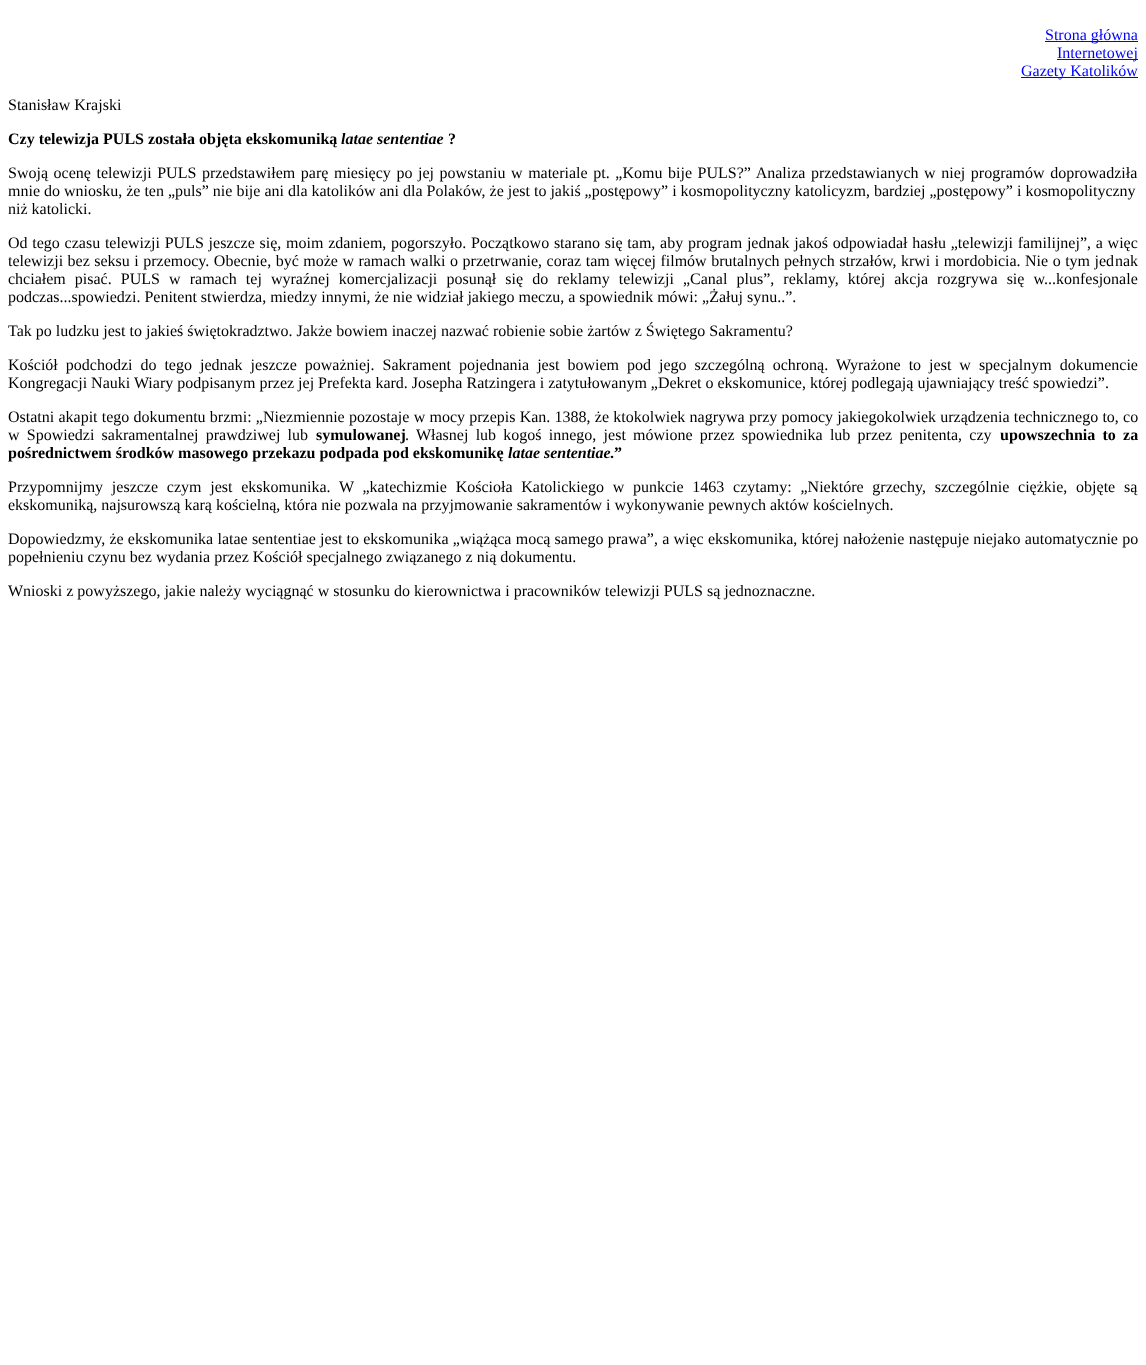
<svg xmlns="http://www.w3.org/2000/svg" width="1146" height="1365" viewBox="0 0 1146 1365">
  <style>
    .t1 { font: 16px Liberation Serif; fill: #00f; }
    .t2 { font: 16px Liberation Serif; fill: #000; }
    .t3 { font: bold 16px Liberation Serif; fill: #000; }
    .t4 { font: italic bold 16px Liberation Serif; fill: #000; }
  </style>
  <rect width="100%" height="100%" fill="#fff"/>
  <rect x="1045" y="41" width="93" height="1" fill="#00f"/>
  <text x="1045" y="40" class="t1">Strona główna</text>
  <rect x="1057" y="59" width="81" height="1" fill="#00f"/>
  <text x="1057" y="58" class="t1">Internetowej</text>
  <rect x="1021" y="77" width="117" height="1" fill="#00f"/>
  <text x="1021" y="76" class="t1">Gazety Katolików</text>
  <text x="8" y="110" class="t2">Stanisław Krajski</text>
  <text x="8" y="144" class="t3">Czy telewizja PULS została objęta ekskomuniką</text>
  <text x="341" y="144" class="t4">latae sententiae</text>
  <text x="448" y="144" class="t3">?</text>
  <text x="8" y="178" word-spacing="1.6" class="t2">Swoją ocenę telewizji PULS przedstawiłem parę miesięcy po jej powstaniu w materiale pt. „Komu bije PULS?” Analiza przedstawianych w niej programów doprowadziła</text>
  <text x="8" y="196" class="t2">mnie do wniosku, że ten „puls” nie bije ani dla katolików ani dla Polaków, że jest to jakiś „postępowy” i kosmopolityczny katolicyzm, bardziej „postępowy” i kosmopolityczny</text>
  <text x="8" y="214" class="t2">niż katolicki.</text>
  <text x="8" y="248" word-spacing="0.75" class="t2">Od tego czasu telewizji PULS jeszcze się, moim zdaniem, pogorszyło. Początkowo starano się tam, aby program jednak jakoś odpowiadał hasłu „telewizji familijnej”, a więc</text>
  <text x="8" y="266" word-spacing="0.5" class="t2">telewizji bez seksu i przemocy. Obecnie, być może w ramach walki o przetrwanie, coraz tam więcej filmów brutalnych pełnych strzałów, krwi i mordobicia. Nie o tym jed</text>
  <text x="1115" y="266" class="t2">nak</text>
  <text x="8" y="284" word-spacing="5.1" class="t2">chciałem pisać. PULS w ramach tej wyraźnej komercjalizacji posunął się do reklamy telewizji „Canal plus”, reklamy, której akcja rozgrywa się w...konfesjonale</text>
  <text x="8" y="302" class="t2">podczas...spowiedzi. Penitent stwierdza, miedzy innymi, że nie widział jakiego meczu, a spowiednik mówi: „Żałuj synu..”.</text>
  <text x="8" y="336" class="t2">Tak po ludzku jest to jakieś świętokradztwo. Jakże bowiem inaczej nazwać robienie sobie żartów z Świętego Sakramentu?</text>
  <text x="8" y="370" word-spacing="4" class="t2">Kościół podchodzi do tego jednak jeszcze poważniej. Sakrament pojednania jest bowiem pod jego szczególną ochroną. Wyrażone to jest w specjalnym dokumencie</text>
  <text x="8" y="388" class="t2">Kongregacji Nauki Wiary podpisanym przez jej Prefekta kard. Josepha Ratzingera i zatytułowanym „Dekret o ekskomunice, której podlegają ujawniający treść spowiedzi”.</text>
  <text x="8" y="422" word-spacing="0.25" class="t2">Ostatni akapit tego dokumentu brzmi: „Niezmiennie pozostaje w mocy przepis Kan. 1388, że ktokolwiek nagrywa przy pomocy jakiegokolwiek urządzenia technicznego to, co</text>
  <text x="8" y="440" word-spacing="3.25" class="t2">w Spowiedzi sakramentalnej prawdziwej lub</text>
  <text x="316" y="440" class="t3">symulowanej</text>
  <text x="405" y="440" word-spacing="3.25" class="t2">. Własnej lub kogoś innego, jest mówione przez spowiednika lub przez penitenta, czy</text>
  <text x="1000" y="440" class="t3">u</text>
  <text x="1009" y="440" word-spacing="3.25" class="t3">powszechnia to za</text>
  <text x="8" y="458" class="t3">pośrednictwem środków masowego przekazu podpada pod ekskomunikę</text>
  <text x="508" y="458" class="t4">latae sententiae</text>
  <text x="610" y="458" class="t3">.”</text>
  <text x="8" y="492" word-spacing="4.75" class="t2">Przypomnijmy jeszcze czym jest ekskomunika. W „katechizmie Kościoła Katolickiego w punkcie 1463 czytamy: „Niektóre grzechy, szczególnie ciężkie, objęte są</text>
  <text x="8" y="510" class="t2">ekskomuniką, najsurowszą karą kościelną, która nie pozwala na przyjmowanie sakramentów i wykonywanie pewnych aktów kościelnych.</text>
  <text x="8" y="544" word-spacing="0.25" class="t2">Dopowiedzmy, że ekskomunika latae sententiae jest to ekskomunika „wiążąca mocą samego prawa”, a więc ekskomunika, której nałożenie następuje niejako automatycznie po</text>
  <text x="8" y="562" class="t2">popełnieniu czynu bez wydania przez Kościół specjalnego związanego z nią dokumentu.</text>
  <text x="8" y="596" class="t2">Wnioski z powyższego, jakie należy wyciągnąć w stosunku do kierownictwa i pracowników telewizji PULS są jednoznaczne.</text>
</svg>
